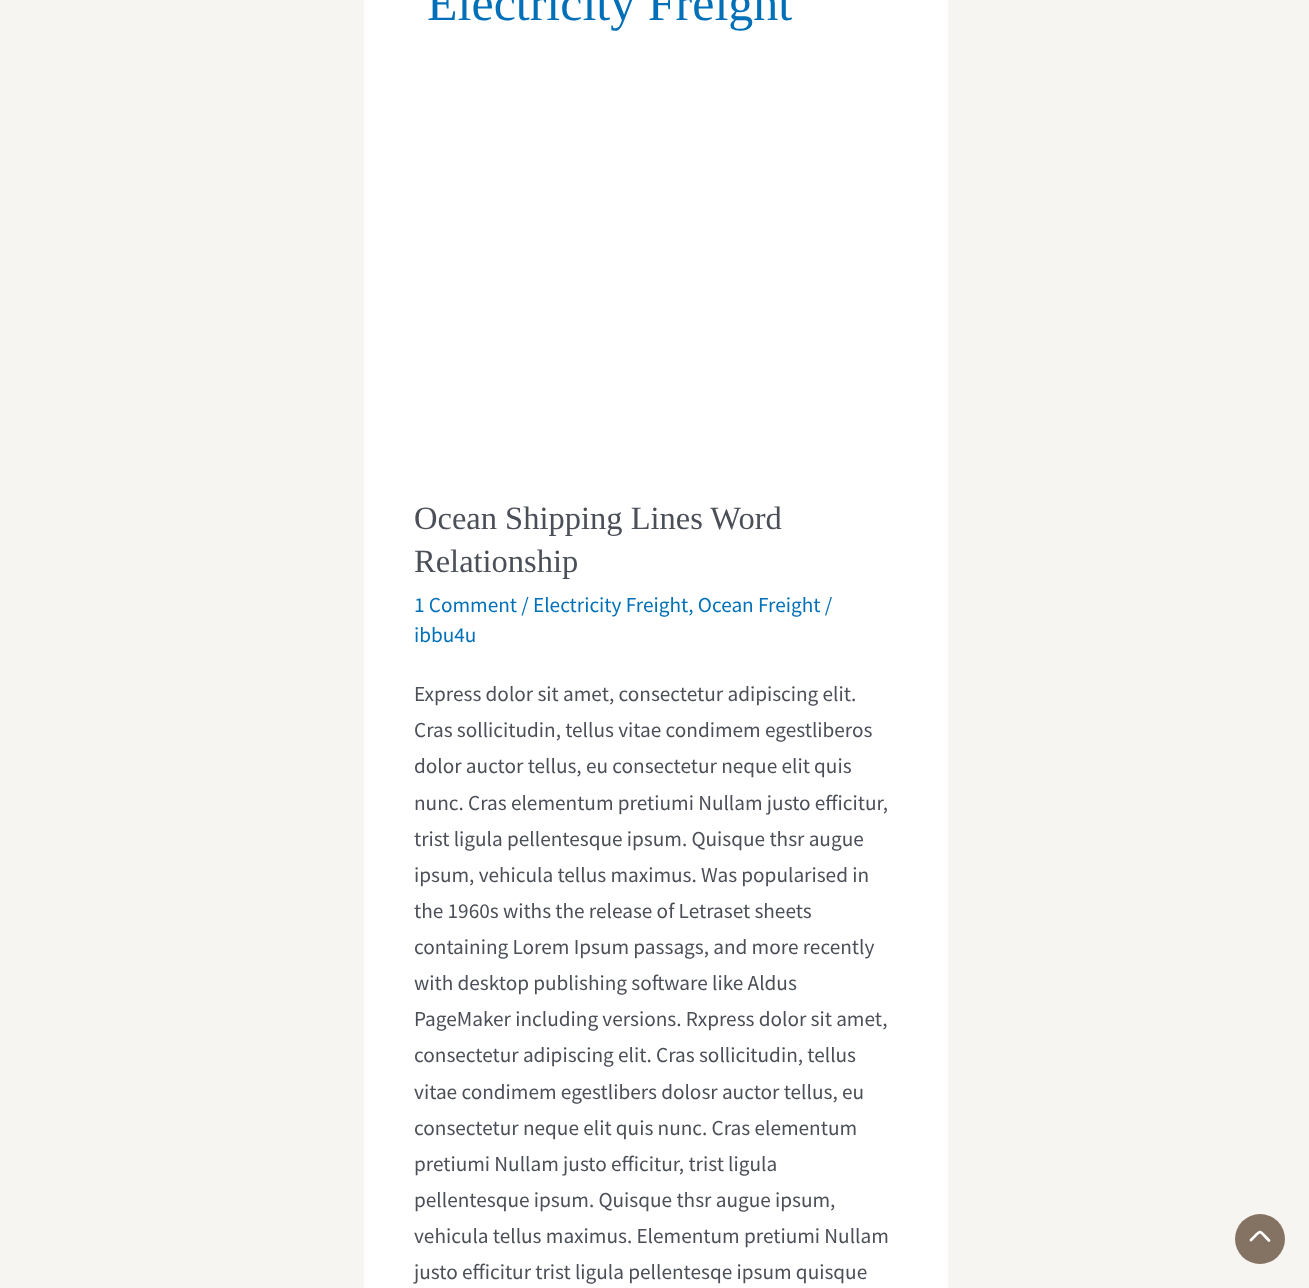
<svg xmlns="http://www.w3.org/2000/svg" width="1309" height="1288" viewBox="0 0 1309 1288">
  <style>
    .t1 { font: 50px Liberation Serif; fill: #0170b9; }
    .t2 { font: 32.5px Liberation Serif; fill: #4b4f58; }
    .t3 { font: 21.25px Source Sans Pro; fill: #0170b9; }
    .t4 { font: 21.25px Source Sans Pro; fill: #4b4f58; }
  </style>
  <rect width="100%" height="100%" fill="#f7f5f1"/>
  <rect x="364" y="0" width="584" height="1288" fill="#fff"/>
  <text x="427" y="20" class="t1">Electricity Freight</text>
  <text x="414" y="529" class="t2">Ocean Shipping Lines Word</text>
  <text x="414" y="572" class="t2">Relationship</text>
  <text x="414" y="612" class="t3">1 Comment / Electricity Freight, Ocean Freight /</text>
  <text x="414" y="642" class="t3">ibbu4u</text>
  <text x="414" y="701" class="t4">Express dolor sit amet, consectetur adipiscing elit.</text>
  <text x="414" y="737" class="t4">Cras sollicitudin, tellus vitae condimem egestliberos</text>
  <text x="414" y="773" class="t4">dolor auctor tellus, eu consectetur neque elit quis</text>
  <text x="414" y="810" class="t4">nunc. Cras elementum pretiumi Nullam justo efficitur,</text>
  <text x="414" y="846" class="t4">trist ligula pellentesque ipsum. Quisque thsr augue</text>
  <text x="414" y="882" class="t4">ipsum, vehicula tellus maximus. Was popularised in</text>
  <text x="414" y="918" class="t4">the 1960s withs the release of Letraset sheets</text>
  <text x="414" y="954" class="t4">containing Lorem Ipsum passags, and more recently</text>
  <text x="414" y="990" class="t4">with desktop publishing software like Aldus</text>
  <text x="414" y="1026" class="t4">PageMaker including versions. Rxpress dolor sit amet,</text>
  <text x="414" y="1062" class="t4">consectetur adipiscing elit. Cras sollicitudin, tellus</text>
  <text x="414" y="1099" class="t4">vitae condimem egestlibers dolosr auctor tellus, eu</text>
  <text x="414" y="1135" class="t4">consectetur neque elit quis nunc. Cras elementum</text>
  <text x="414" y="1171" class="t4">pretiumi Nullam justo efficitur, trist ligula</text>
  <text x="414" y="1207" class="t4">pellentesque ipsum. Quisque thsr augue ipsum,</text>
  <text x="414" y="1243" class="t4">vehicula tellus maximus. Elementum pretiumi Nullam</text>
  <text x="414" y="1279" class="t4">justo efficitur trist ligula pellentesqe ipsum quisque</text>
  <circle cx="1260" cy="1239" r="25" fill="#847262"/>
  <path d="M1269 1240.5C1258 1229.5 1262 1229.5 1251 1240" fill="none" stroke="#fdfcfb" stroke-width="2.8" stroke-linecap="round" stroke-linejoin="bevel"/>
</svg>
